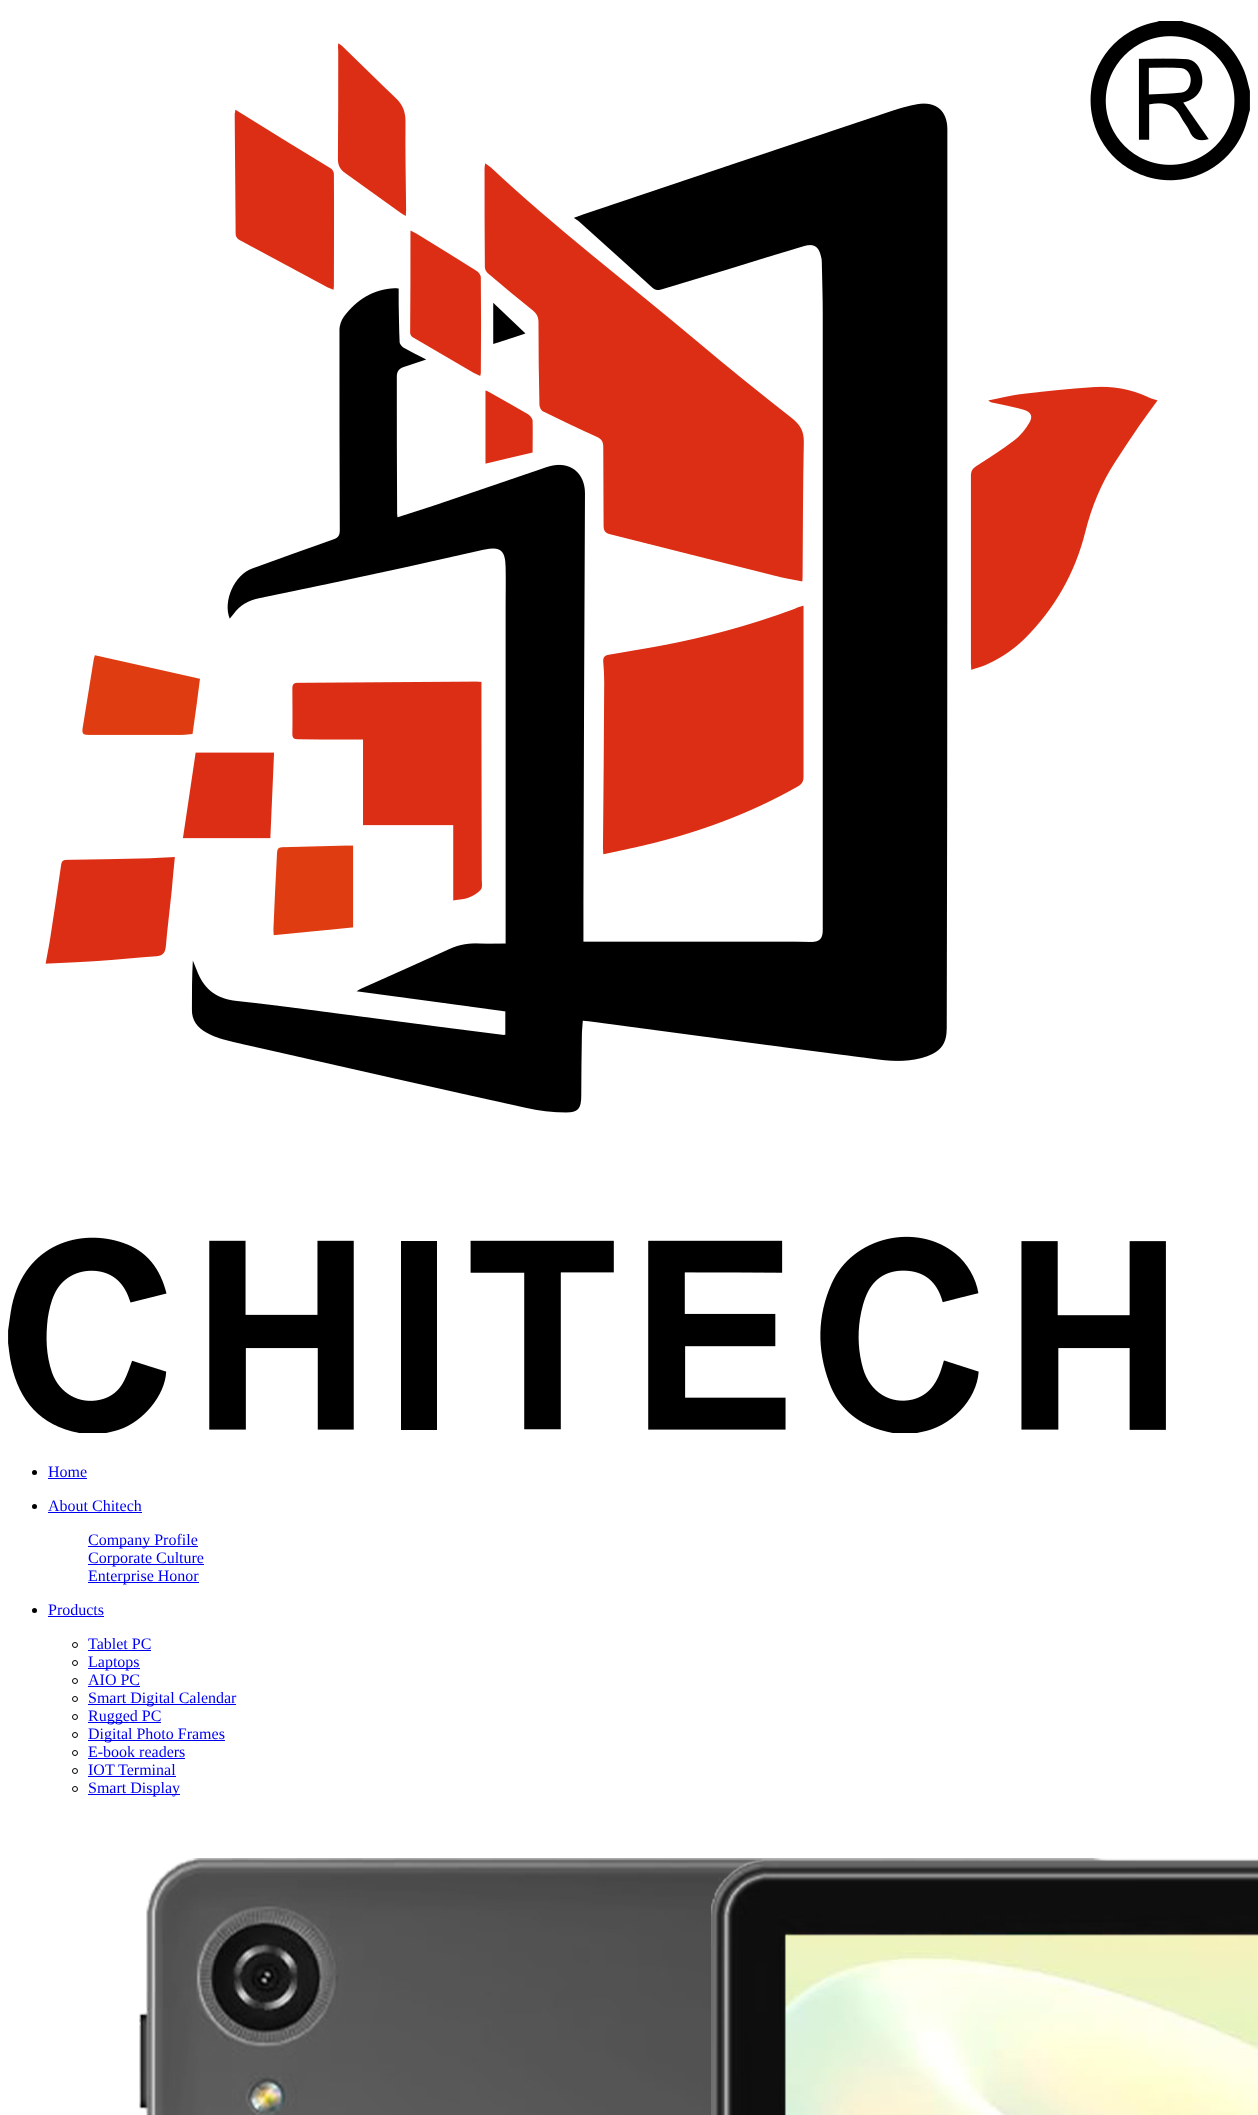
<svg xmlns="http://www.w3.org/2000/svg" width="1258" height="2115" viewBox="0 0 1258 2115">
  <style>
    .t1 { font: 16px Liberation Serif; fill: #00e; }
  </style>
  <rect width="100%" height="100%" fill="#fff"/>
  <image x="8" y="21" width="1242" height="1412" href="images/1.png"/>
  <circle cx="34.5" cy="1472.5" r="2.5" fill="#000"/>
  <text x="48" y="1477" class="t1">Home</text>
  <rect x="48" y="1478" width="39" height="1" fill="#00e"/>
  <circle cx="34.5" cy="1506.5" r="2.5" fill="#000"/>
  <text x="48" y="1511" class="t1">About Chitech</text>
  <rect x="48" y="1512" width="94" height="1" fill="#00e"/>
  <rect x="88" y="1546" width="110" height="1" fill="#00e"/>
  <text x="88" y="1545" class="t1">Company Profile</text>
  <rect x="88" y="1564" width="116" height="1" fill="#00e"/>
  <text x="88" y="1563" class="t1">Corporate Culture</text>
  <rect x="88" y="1582" width="111" height="1" fill="#00e"/>
  <text x="88" y="1581" class="t1">Enterprise Honor</text>
  <circle cx="34.5" cy="1610.5" r="2.5" fill="#000"/>
  <text x="48" y="1615" class="t1">Products</text>
  <rect x="48" y="1616" width="56" height="1" fill="#00e"/>
  <circle cx="75" cy="1645" r="2.5" fill="none" stroke="#000"/>
  <text x="88" y="1649" class="t1">Tablet PC</text>
  <rect x="88" y="1650" width="63" height="1" fill="#00e"/>
  <circle cx="75" cy="1663" r="2.5" fill="none" stroke="#000"/>
  <rect x="88" y="1668" width="52" height="1" fill="#00e"/>
  <text x="88" y="1667" class="t1">Laptops</text>
  <circle cx="75" cy="1681" r="2.5" fill="none" stroke="#000"/>
  <text x="88" y="1685" class="t1">AIO PC</text>
  <rect x="88" y="1686" width="52" height="1" fill="#00e"/>
  <circle cx="75" cy="1699" r="2.5" fill="none" stroke="#000"/>
  <rect x="88" y="1704" width="148" height="1" fill="#00e"/>
  <text x="88" y="1703" class="t1">Smart Digital Calendar</text>
  <circle cx="75" cy="1717" r="2.5" fill="none" stroke="#000"/>
  <rect x="88" y="1722" width="73" height="1" fill="#00e"/>
  <text x="88" y="1721" class="t1">Rugged PC</text>
  <circle cx="75" cy="1735" r="2.5" fill="none" stroke="#000"/>
  <rect x="88" y="1740" width="137" height="1" fill="#00e"/>
  <text x="88" y="1739" class="t1">Digital Photo Frames</text>
  <circle cx="75" cy="1753" r="2.5" fill="none" stroke="#000"/>
  <text x="88" y="1757" class="t1">E-book readers</text>
  <rect x="88" y="1758" width="97" height="1" fill="#00e"/>
  <circle cx="75" cy="1771" r="2.5" fill="none" stroke="#000"/>
  <text x="88" y="1775" class="t1">IOT Terminal</text>
  <rect x="88" y="1776" width="88" height="1" fill="#00e"/>
  <circle cx="75" cy="1789" r="2.5" fill="none" stroke="#000"/>
  <rect x="88" y="1794" width="92" height="1" fill="#00e"/>
  <text x="88" y="1793" class="t1">Smart Display</text>
  <image x="139" y="1858" width="1119" height="257" href="images/2.png"/>
</svg>
